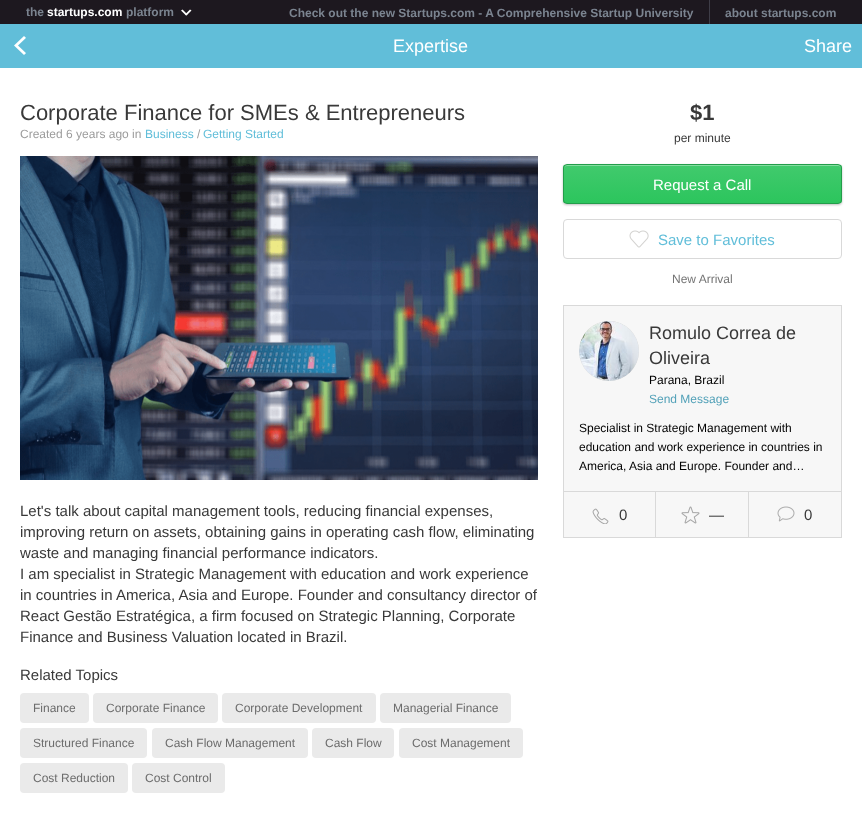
<svg xmlns="http://www.w3.org/2000/svg" width="862" height="839" viewBox="0 0 862 839">
  <style>
    .t1 { font: bold 12px Liberation Sans; fill: #7b8490; }
    .t2 { font: bold 12px Liberation Sans; fill: #fff; }
    .t3 { font: 18px Liberation Sans; fill: #fff; }
    .t4 { font: 22px Liberation Sans; fill: #393939; }
    .t5 { font: 12px Liberation Sans; fill: #9c9c9c; }
    .t6 { font: 12px Liberation Sans; fill: #61bed9; }
    .t7 { font: 15px Liberation Sans; fill: #393939; }
    .t8 { font: 12px Liberation Sans; fill: #6c6c6c; }
    .t9 { font: bold 22px Liberation Sans; fill: #393939; }
    .t10 { font: 12px Liberation Sans; fill: #393939; }
    .t11 { font: 15px Liberation Sans; fill: #fff; }
    .t12 { font: 15px Liberation Sans; fill: #61bed9; }
    .t13 { font: 12px Liberation Sans; fill: #747474; }
    .t14 { font: 18px Liberation Sans; fill: #393939; }
    .t15 { font: 12px Liberation Sans; fill: #000; }
    .t16 { font: 12px Liberation Sans; fill: #52a1b8; }
  </style>
  <defs>
    <clipPath id="clip1"><rect x="563" y="164" width="279" height="40" rx="4"/></clipPath>
    <linearGradient id="g1" gradientUnits="userSpaceOnUse" x1="703" y1="165" x2="703" y2="203"><stop offset="0" stop-color="#41ca6d"/><stop offset="1" stop-color="#2cc55d"/></linearGradient>
  </defs>
  <rect width="100%" height="100%" fill="#1d181f"/>
  <text x="26" y="16" class="t1">the</text>
  <text x="47" y="16" class="t2">startups.com</text>
  <text x="126" y="16" class="t1">platform</text>
  <path d="M187.5 14.5L186 15.5L181 10.5L182.5 9.5Z" fill="#fff"/>
  <path d="M186.5 15.5L185 14.5L190 9.5L191.5 10.5Z" fill="#fff"/>
  <rect x="709" y="0" width="1" height="24" fill="#3e3d47"/>
  <text x="289" y="17" class="t1">Check out the new Startups.com - A Comprehensive Startup University</text>
  <text x="725" y="17" class="t1">about startups.com</text>
  <rect x="0" y="24" width="862" height="44" fill="#61bed9"/>
  <image x="14" y="36" width="12" height="19" href="images/1.png"/>
  <text x="393" y="52" class="t3">Expertise</text>
  <text x="804" y="52" class="t3">Share</text>
  <rect x="0" y="68" width="862" height="771" fill="#fff"/>
  <text x="20" y="120" class="t4">Corporate Finance for SMEs &amp; Entrepreneurs</text>
  <text x="20" y="138" class="t5">Created 6 years ago in</text>
  <text x="145" y="138" class="t6">Business</text>
  <text x="197" y="138" class="t5">/</text>
  <text x="203" y="138" class="t6">Getting Started</text>
  <image x="20" y="156" width="518" height="324" href="images/2.png"/>
  <text x="20" y="516" class="t7">Let's talk about capital management tools, reducing financial expenses,</text>
  <text x="20" y="537" class="t7">improving return on assets, obtaining gains in operating cash flow, eliminating</text>
  <text x="20" y="558" class="t7">waste and managing financial performance indicators.</text>
  <text x="20" y="579" class="t7">I am specialist in Strategic Management with education and work experience</text>
  <text x="20" y="600" class="t7">in countries in America, Asia and Europe. Founder and consultancy director of</text>
  <text x="20" y="621" class="t7">React Gestão Estratégica, a firm focused on Strategic Planning, Corporate</text>
  <text x="20" y="642" class="t7">Finance and Business Valuation located in Brazil.</text>
  <text x="20" y="680" class="t7">Related Topics</text>
  <rect x="20" y="693" width="69" height="30" rx="4" fill="#eaeaea"/>
  <text x="33" y="712" class="t8">Finance</text>
  <rect x="93" y="693" width="125" height="30" rx="4" fill="#eaeaea"/>
  <text x="106" y="712" class="t8">Corporate Finance</text>
  <rect x="222" y="693" width="154" height="30" rx="4" fill="#eaeaea"/>
  <text x="235" y="712" class="t8">Corporate Development</text>
  <rect x="380" y="693" width="131" height="30" rx="4" fill="#eaeaea"/>
  <text x="393" y="712" class="t8">Managerial Finance</text>
  <rect x="20" y="728" width="127" height="30" rx="4" fill="#eaeaea"/>
  <text x="33" y="747" class="t8">Structured Finance</text>
  <rect x="152" y="728" width="156" height="30" rx="4" fill="#eaeaea"/>
  <text x="165" y="747" class="t8">Cash Flow Management</text>
  <rect x="312" y="728" width="82" height="30" rx="4" fill="#eaeaea"/>
  <text x="325" y="747" class="t8">Cash Flow</text>
  <rect x="399" y="728" width="124" height="30" rx="4" fill="#eaeaea"/>
  <text x="412" y="747" class="t8">Cost Management</text>
  <rect x="20" y="763" width="108" height="30" rx="4" fill="#eaeaea"/>
  <text x="33" y="782" class="t8">Cost Reduction</text>
  <rect x="132" y="763" width="93" height="30" rx="4" fill="#eaeaea"/>
  <text x="145" y="782" class="t8">Cost Control</text>
  <text x="690" y="120" class="t9">$1</text>
  <text x="674" y="142" class="t10">per minute</text>
  <rect x="563" y="165" width="279" height="40" rx="4" fill="#00000040" filter="blur(1px)"/>
  <g clip-path="url(#clip1)">
    <rect x="563" y="165" width="279" height="38" fill="url(#g1)"/>
  </g>
  <path d="M567 166H838C840 166 841 167 841 169V168C841 166 840 165 838 165H567C565 165 564 166 564 168V169C564 167 565 166 567 166Z" fill="#83dda0"/>
  <rect x="563.5" y="164.5" width="278" height="39" rx="3.5" fill="none" stroke="#239d4a"/>
  <text x="653" y="190" class="t11">Request a Call</text>
  <rect x="563.5" y="219.5" width="278" height="39" rx="3.5" fill="none" stroke="#d9d9d9"/>
  <image x="629" y="230" width="20" height="18" href="images/3.png"/>
  <text x="658" y="245" class="t12">Save to Favorites</text>
  <text x="672" y="283" class="t13">New Arrival</text>
  <rect x="563.5" y="305.5" width="278" height="232" fill="#f7f7f7" stroke="#d9d9d9"/>
  <circle cx="609" cy="351" r="30" fill="#d9d9d9"/>
  <image x="579" y="321" width="60" height="60" href="images/4.png"/>
  <text x="649" y="339" class="t14">Romulo Correa de</text>
  <text x="649" y="364" class="t14">Oliveira</text>
  <text x="649" y="384" class="t15">Parana, Brazil</text>
  <text x="649" y="403" class="t16">Send Message</text>
  <text x="579" y="432" class="t15">Specialist in Strategic Management with</text>
  <text x="579" y="451" class="t15">education and work experience in countries in</text>
  <text x="579" y="470" class="t15">America, Asia and Europe. Founder and…</text>
  <rect x="564" y="491" width="277" height="1" fill="#d9d9d9"/>
  <image x="592" y="508" width="17" height="16" href="images/5.png"/>
  <text x="619" y="520" class="t7">0</text>
  <rect x="748" y="492" width="1" height="45" fill="#d9d9d9"/>
  <rect x="655" y="492" width="1" height="45" fill="#d9d9d9"/>
  <image x="681" y="506" width="19" height="18" href="images/6.png"/>
  <text x="709" y="520" class="t7">—</text>
  <image x="777" y="506" width="18" height="16" href="images/7.png"/>
  <text x="804" y="520" class="t7">0</text>
</svg>
